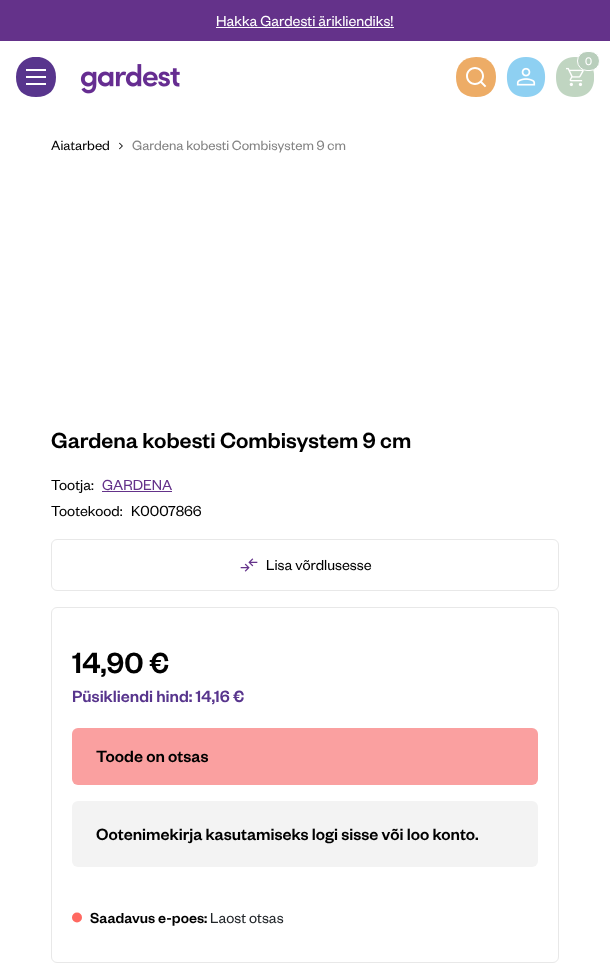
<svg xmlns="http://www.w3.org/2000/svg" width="610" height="979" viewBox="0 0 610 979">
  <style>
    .t1 { font: 16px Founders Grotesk; fill: #fff; }
    .t2 { font: 12px Founders Grotesk; fill: #fff; }
    .t3 { font: 14.75px Founders Grotesk; fill: #000; }
    .t4 { font: 14.75px Founders Grotesk; fill: #838383; }
    .t5 { font: 500 24px Founders Grotesk; fill: #000; }
    .t6 { font: 16px Founders Grotesk; fill: #000; }
    .t7 { font: 16px Founders Grotesk; fill: #64328a; }
    .t8 { font: 500 32px Founders Grotesk; fill: #000; }
    .t9 { font: 500 18px Founders Grotesk; fill: #58358d; }
    .t10 { font: 500 18px Founders Grotesk; fill: #000; }
    .t11 { font: 500 16px Founders Grotesk; fill: #000; }
    .t12 { font: 16px Founders Grotesk; fill: #212529; }
  </style>
  <defs>
    <clipPath id="clip1"><rect x="16" y="57" width="40" height="40"/></clipPath>
  </defs>
  <rect width="100%" height="100%" fill="#fff"/>
  <rect x="0" y="0" width="610" height="41" fill="#64328a"/>
  <text x="216" y="26" class="t1">Hakka Gardesti ärikliendiks!</text>
  <rect x="216" y="27" width="178" height="1" fill="#fff"/>
  <g clip-path="url(#clip1)">
    <path d="M56 77C56 50 16 50 16 77C16 90 23 97 36 97C49 97 56 90 56 77Z" fill="#58358d"/>
  </g>
  <rect x="26" y="69" width="20" height="2" fill="#fff"/>
  <rect x="26" y="76" width="20" height="2" fill="#fff"/>
  <rect x="26" y="83" width="20" height="2" fill="#fff"/>
  <image x="456" y="57" width="40" height="40" href="images/1.png"/>
  <image x="506" y="57" width="40" height="40" href="images/2.png"/>
  <image x="556" y="57" width="38" height="40" href="images/3.png"/>
  <rect x="577.5" y="51.5" width="22" height="19" rx="9.5" fill="#b9cebc" stroke="#fff"/>
  <text x="585" y="65" class="t2">0</text>
  <image x="80" y="64" width="100" height="30" href="images/4.png"/>
  <text x="51" y="150" class="t3">Aiatarbed</text>
  <image x="119" y="142" width="4" height="8" href="images/5.png"/>
  <text x="132" y="150" class="t4">Gardena kobesti Combisystem 9 cm</text>
  <text x="51" y="448" class="t5">Gardena kobesti Combisystem 9 cm</text>
  <text x="51" y="490" class="t6">Tootja:</text>
  <text x="102" y="490" class="t7">GARDENA</text>
  <rect x="102" y="491" width="70" height="1" fill="#64328a"/>
  <text x="51" y="516" class="t6">Tootekood:</text>
  <text x="131" y="516" class="t6">K0007866</text>
  <rect x="51.5" y="539.5" width="507" height="51" rx="5.5" fill="none" stroke="#e8e8e8"/>
  <image x="240" y="558" width="18" height="14" href="images/6.png"/>
  <text x="266" y="570" class="t6">Lisa võrdlusesse</text>
  <rect x="51.5" y="607.5" width="507" height="355" rx="5.5" fill="none" stroke="#e8e8e8"/>
  <text x="72" y="673" class="t8">14,90 €</text>
  <text x="72" y="702" class="t9">Püsikliendi hind: 14,16 €</text>
  <rect x="72" y="728" width="466" height="57" rx="6" fill="#faa0a0"/>
  <text x="96" y="762" class="t10">Toode on otsas</text>
  <rect x="72" y="801" width="466" height="66" rx="6" fill="#f3f3f3"/>
  <text x="96" y="840" class="t10">Ootenimekirja kasutamiseks logi sisse või loo konto.</text>
  <circle cx="77" cy="917.5" r="5" fill="#ff6961"/>
  <text x="90" y="923" class="t11">Saadavus e-poes:</text>
  <text x="210" y="923" class="t12">Laost otsas</text>
</svg>
